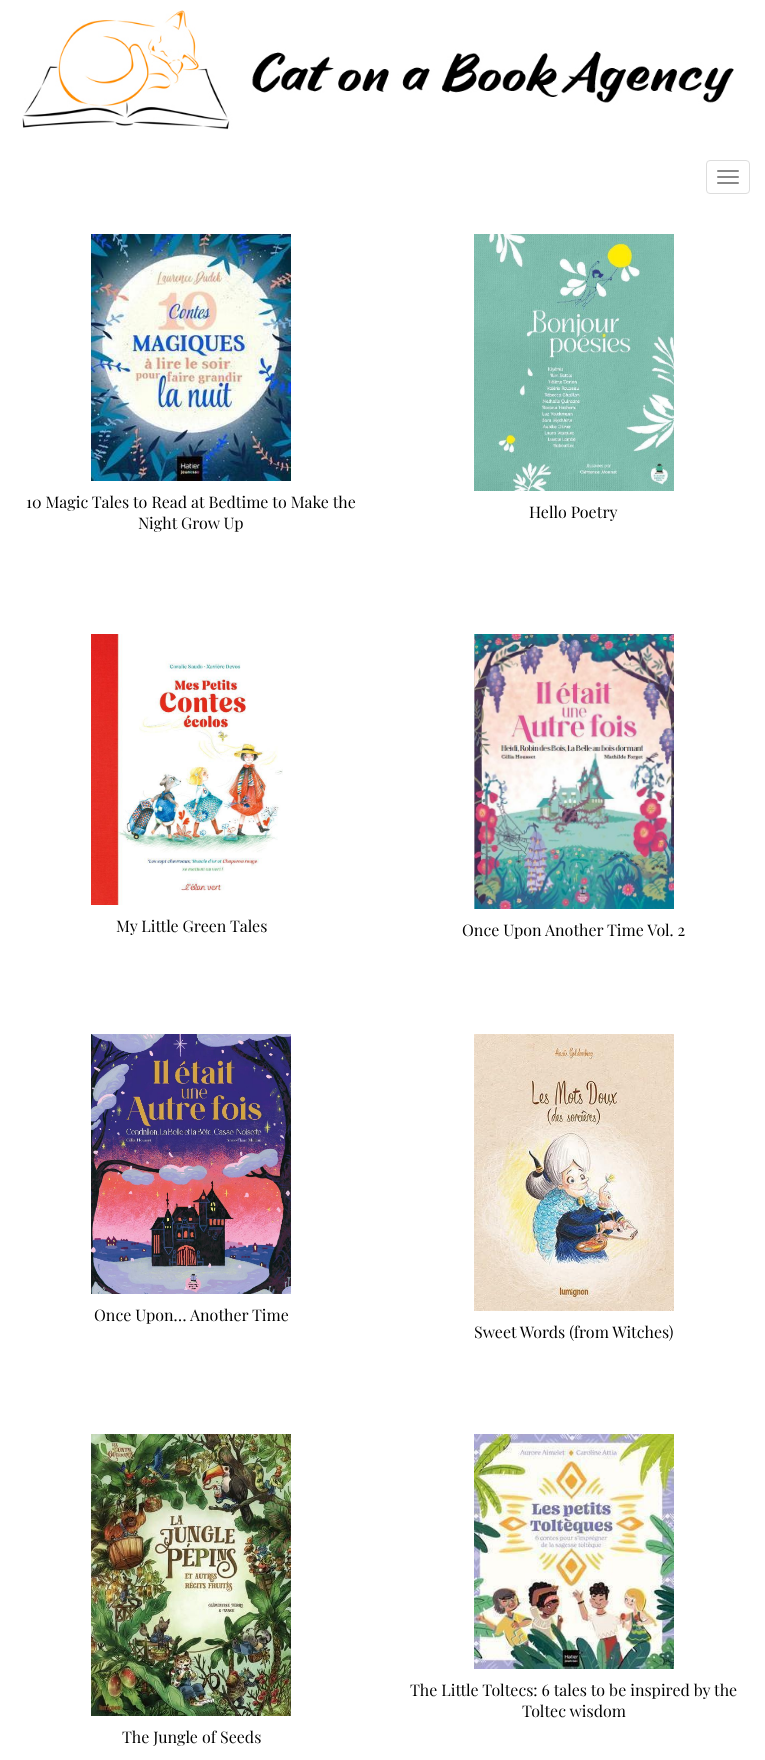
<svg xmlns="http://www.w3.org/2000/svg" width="765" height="1760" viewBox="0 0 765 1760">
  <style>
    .t1 { font: 16px Playfair Display; fill: #000; }
  </style>
  <rect width="100%" height="100%" fill="#fff"/>
  <image x="22" y="10" width="712" height="120" href="images/1.png"/>
  <rect x="706.5" y="160.5" width="43" height="33" rx="3.5" fill="none" stroke="#ddd"/>
  <rect x="717" y="170" width="22" height="2" rx="1" fill="#888"/>
  <rect x="717" y="176" width="22" height="2" rx="1" fill="#888"/>
  <rect x="717" y="182" width="22" height="2" rx="1" fill="#888"/>
  <image x="91" y="234" width="200" height="247" href="images/2.png"/>
  <text x="26" y="508" class="t1">10 Magic Tales to Read at Bedtime to Make the</text>
  <text x="138" y="529" class="t1">Night Grow Up</text>
  <image x="474" y="234" width="200" height="257" href="images/3.png"/>
  <text x="529" y="518" class="t1">Hello Poetry</text>
  <image x="91" y="634" width="192" height="271" href="images/4.png"/>
  <text x="116" y="932" class="t1">My Little Green Tales</text>
  <image x="474" y="634" width="200" height="275" href="images/5.png"/>
  <text x="462" y="936" class="t1">Once Upon Another Time Vol. 2</text>
  <image x="91" y="1034" width="200" height="260" href="images/6.png"/>
  <text x="94" y="1321" class="t1">Once Upon… Another Time</text>
  <image x="474" y="1034" width="200" height="277" href="images/7.png"/>
  <text x="474" y="1338" class="t1">Sweet Words (from Witches)</text>
  <image x="474" y="1434" width="200" height="235" href="images/8.png"/>
  <text x="410" y="1696" class="t1">The Little Toltecs: 6 tales to be inspired by the</text>
  <text x="522" y="1717" class="t1">Toltec wisdom</text>
  <image x="91" y="1434" width="200" height="282" href="images/9.png"/>
  <text x="122" y="1743" class="t1">The Jungle of Seeds</text>
</svg>
